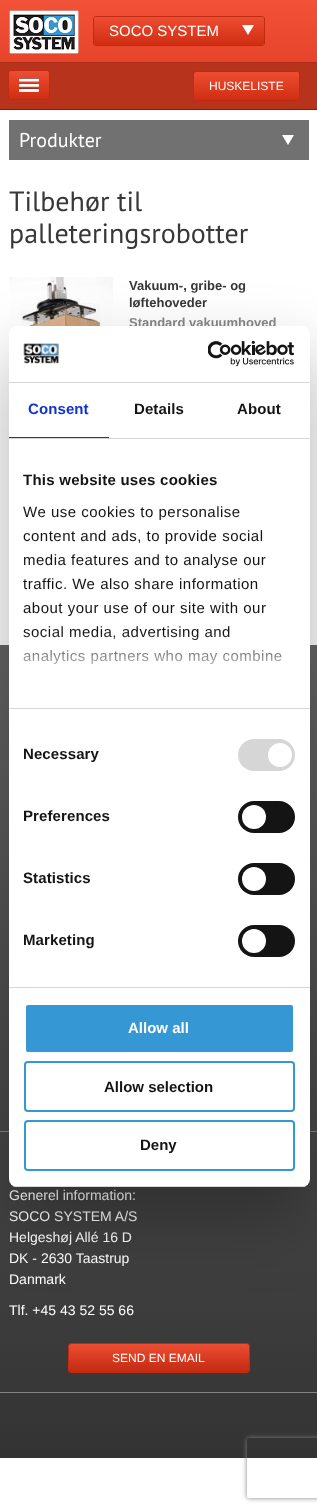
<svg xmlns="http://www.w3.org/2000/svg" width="317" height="1512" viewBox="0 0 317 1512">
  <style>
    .t1 { font: 15px Liberation Sans; fill: #fff; }
    .t2 { font: 12px Liberation Sans; fill: #fff; }
    .t3 { font: 20px PT Sans; fill: #fff; }
    .t4 { font: 28px PT Sans; fill: #383838; }
    .t5 { font: bold 13px Liberation Sans; fill: #383838; }
    .t6 { font: bold 13px Liberation Sans; fill: #888; }
    .t7 { font: 14px Liberation Sans; fill: #fff; }
    .t8 { font: bold 15px Liberation Sans; letter-spacing: 0.1px; fill: #1032cf; }
    .t9 { font: bold 15px Liberation Sans; letter-spacing: 0.1px; fill: #141414; }
    .t10 { font: bold 15px Liberation Sans; letter-spacing: 0.25px; fill: #141414; }
    .t11 { font: 15px Liberation Sans; letter-spacing: 0.5px; fill: #141414; }
    .t12 { font: bold 15px Liberation Sans; fill: #fff; }
    .t13 { font: bold 15px Liberation Sans; fill: #141414; }
  </style>
  <defs>
    <linearGradient id="g1" gradientUnits="userSpaceOnUse" x1="159" y1="0" x2="159" y2="62"><stop offset="0" stop-color="#f25237"/><stop offset="1" stop-color="#e6452b"/></linearGradient>
    <linearGradient id="g2" gradientUnits="userSpaceOnUse" x1="179" y1="17" x2="179" y2="45"><stop offset="0" stop-color="#ed4d32"/><stop offset="1" stop-color="#d02e12"/></linearGradient>
    <linearGradient id="g3" gradientUnits="userSpaceOnUse" x1="29" y1="71" x2="29" y2="99"><stop offset="0" stop-color="#ed4d32"/><stop offset="1" stop-color="#d02e12"/></linearGradient>
    <linearGradient id="g4" gradientUnits="userSpaceOnUse" x1="247" y1="72" x2="247" y2="100"><stop offset="0" stop-color="#ed4d32"/><stop offset="1" stop-color="#d02e12"/></linearGradient>
    <linearGradient id="g5" gradientUnits="userSpaceOnUse" x1="158" y1="645" x2="159" y2="1458"><stop offset="0" stop-color="#666"/><stop offset="1" stop-color="#333"/></linearGradient>
    <linearGradient id="g6" gradientUnits="userSpaceOnUse" x1="159" y1="1344" x2="159" y2="1372"><stop offset="0" stop-color="#ed4d32"/><stop offset="1" stop-color="#c22a11"/></linearGradient>
    <linearGradient id="g7" gradientUnits="userSpaceOnUse" x1="153" y1="708" x2="153" y2="633"><stop offset="0" stop-color="#fff"/><stop offset="0.5" stop-color="#fff" stop-opacity="0.8"/><stop offset="1" stop-color="#fff" stop-opacity="0"/></linearGradient>
    <clipPath id="clip1"><rect x="9" y="326" width="301" height="861" rx="8"/></clipPath>
    <clipPath id="clip2"><path d="M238 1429H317V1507H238ZM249 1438H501C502 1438 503 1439 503 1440V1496C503 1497 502 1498 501 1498H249C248 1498 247 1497 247 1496V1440C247 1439 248 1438 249 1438Z" clip-rule="evenodd"/></clipPath>
  </defs>
  <rect width="100%" height="100%" fill="#fff"/>
  <rect x="0" y="0" width="317" height="62" fill="url(#g1)"/>
  <rect x="93.5" y="16.5" width="171" height="29" rx="2.5" fill="none" stroke="#c22a11"/>
  <rect x="94" y="17" width="170" height="28" rx="2" fill="url(#g2)"/>
  <text x="109" y="36" class="t1">SOCO SYSTEM</text>
  <path d="M242 25H254L248 35Z" fill="#fff"/>
  <rect x="0" y="63" width="317" height="46" fill="#b8331c"/>
  <rect x="0" y="62" width="317" height="1" fill="#aa2e18"/>
  <rect x="0" y="109" width="317" height="1" fill="#841f0e"/>
  <rect x="8.5" y="70.5" width="41" height="29" rx="2.5" fill="none" stroke="#c22a11"/>
  <rect x="9" y="71" width="40" height="28" rx="2" fill="url(#g3)"/>
  <image x="19" y="78" width="20" height="14" href="images/1.png"/>
  <image x="9" y="10" width="70" height="44" href="images/2.png"/>
  <rect x="193.5" y="71.5" width="106" height="29" rx="2.5" fill="none" stroke="#c22a11"/>
  <rect x="194" y="72" width="105" height="28" rx="2" fill="url(#g4)"/>
  <text x="209" y="90" class="t2">HUSKELISTE</text>
  <rect x="9" y="120" width="300" height="40" fill="#717171"/>
  <text x="19" y="147" class="t3">Produkter</text>
  <path d="M282 135H294L288 145Z" fill="#fff"/>
  <text x="9" y="211" class="t4">Tilbehør til</text>
  <text x="9" y="243" class="t4">palleteringsrobotter</text>
  <image x="9" y="277" width="104" height="57" href="images/3.png"/>
  <text x="129" y="290" class="t5">Vakuum-, gribe- og</text>
  <text x="129" y="307" class="t5">løftehoveder</text>
  <text x="129" y="327" class="t6">Standard vakuumhoved</text>
  <rect x="0" y="645" width="317" height="813" fill="url(#g5)"/>
  <rect x="0" y="1131" width="317" height="1" fill="#848484"/>
  <rect x="0" y="1392" width="317" height="1" fill="#848484"/>
  <text x="9" y="1200" class="t7">Generel information:</text>
  <text x="9" y="1221" class="t7">SOCO SYSTEM A/S</text>
  <text x="9" y="1242" class="t7">Helgeshøj Allé 16 D</text>
  <text x="9" y="1263" class="t7">DK - 2630 Taastrup</text>
  <text x="9" y="1284" class="t7">Danmark</text>
  <text x="9" y="1315" class="t7">Tlf. +45 43 52 55 66</text>
  <rect x="68.5" y="1343.5" width="181" height="29" rx="2.5" fill="none" stroke="#c22a11"/>
  <rect x="69" y="1344" width="180" height="28" rx="2" fill="url(#g6)"/>
  <text x="112" y="1362" class="t2">SEND EN EMAIL</text>
  <rect x="9" y="358" width="301" height="861" rx="8" fill="#0000004d" filter="blur(34px)"/>
  <rect x="9" y="326" width="301" height="861" rx="8" fill="#fff"/>
  <rect x="9" y="382" width="301" height="1" fill="#d6d6d6"/>
  <image x="23" y="343" width="36" height="21" href="images/4.png"/>
  <image x="208" y="341" width="87" height="26" href="images/5.png"/>
  <rect x="9" y="438" width="301" height="1" fill="#d6d6d6"/>
  <rect x="9" y="437" width="100" height="1" fill="#1032cf"/>
  <text x="28" y="414" class="t8">Consent</text>
  <text x="134" y="414" class="t9">Details</text>
  <text x="237" y="414" class="t9">About</text>
  <rect x="9" y="708" width="301" height="1" fill="#d6d6d6"/>
  <text x="23" y="485" class="t10">This website uses cookies</text>
  <text x="23" y="517" class="t11">We use cookies to personalise</text>
  <text x="23" y="541" class="t11">content and ads, to provide social</text>
  <text x="23" y="565" class="t11">media features and to analyse our</text>
  <text x="23" y="589" class="t11">traffic. We also share information</text>
  <text x="23" y="613" class="t11">about your use of our site with our</text>
  <text x="23" y="637" class="t11">social media, advertising and</text>
  <text x="23" y="661" class="t11">analytics partners who may combine</text>
  <rect x="23" y="634" width="259" height="31" fill="url(#g7)"/>
  <rect x="9" y="987" width="301" height="1" fill="#d6d6d6"/>
  <text x="23" y="759" class="t9">Necessary</text>
  <rect x="238" y="739" width="57" height="32" rx="16" fill="#d6d6d6"/>
  <circle cx="280" cy="755" r="12" fill="#fff"/>
  <text x="23" y="821" class="t9">Preferences</text>
  <rect x="238" y="801" width="57" height="32" rx="16" fill="#141414"/>
  <circle cx="254" cy="817" r="12" fill="#fff"/>
  <text x="23" y="883" class="t9">Statistics</text>
  <rect x="238" y="863" width="57" height="32" rx="16" fill="#141414"/>
  <circle cx="254" cy="879" r="12" fill="#fff"/>
  <text x="23" y="945" class="t9">Marketing</text>
  <rect x="238" y="925" width="57" height="32" rx="16" fill="#141414"/>
  <circle cx="254" cy="941" r="12" fill="#fff"/>
  <g clip-path="url(#clip1)">
    <rect x="9" y="1186" width="301" height="1" fill="#d6d6d6"/>
  </g>
  <rect x="25" y="1004" width="269" height="49" rx="3" fill="#3597d4" stroke="#fff" stroke-width="2"/>
  <text x="128" y="1033" class="t12">Allow all</text>
  <rect x="25" y="1062" width="269" height="49" rx="3" fill="none" stroke="#3597d4" stroke-width="2"/>
  <text x="104" y="1092" class="t13">Allow selection</text>
  <rect x="25" y="1121" width="269" height="49" rx="3" fill="none" stroke="#3597d4" stroke-width="2"/>
  <text x="140" y="1150" class="t13">Deny</text>
  <g clip-path="url(#clip2)">
    <rect x="247" y="1438" width="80" height="60" rx="2" fill="#808080" filter="blur(2.5px)"/>
  </g>
</svg>
